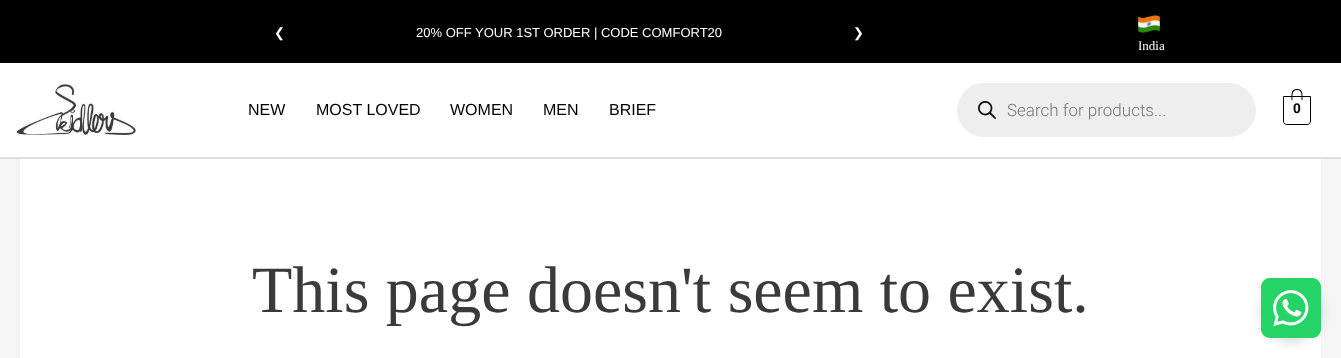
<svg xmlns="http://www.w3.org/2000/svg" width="1341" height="358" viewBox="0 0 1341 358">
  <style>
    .t1 { font: 13px DejaVu Sans; fill: #fff; }
    .t2 { font: 13px Liberation Sans; fill: #fff; }
    .t3 { font: 13px Liberation Serif; fill: #fff; }
    .t4 { font: 16px Liberation Sans; fill: #000; }
    .t5 { font: 300 17px Roboto; fill: #777; }
    .t6 { font: bold 14px Liberation Sans; fill: #000; }
    .t7 { font: 66px Liberation Serif; fill: #3a3a3a; }
  </style>
  <rect width="100%" height="100%" fill="#f5f5f5"/>
  <rect x="0" y="0" width="1341" height="63" fill="#000"/>
  <text x="274" y="37" class="t1">❮</text>
  <text x="853" y="37" class="t1">❯</text>
  <text x="416" y="37" class="t2">20% OFF YOUR 1ST ORDER | CODE COMFORT20</text>
  <image x="1138" y="15" width="22" height="18" href="images/1.png"/>
  <text x="1138" y="50" class="t3">India</text>
  <rect x="0" y="157" width="1341" height="2" fill="#e1dede"/>
  <rect x="0" y="63" width="1341" height="94" fill="#fff"/>
  <image x="15" y="84" width="121" height="51" href="images/2.png"/>
  <text x="248" y="115" class="t4">NEW</text>
  <text x="316" y="115" class="t4">MOST LOVED</text>
  <text x="450" y="115" class="t4">WOMEN</text>
  <text x="543" y="115" class="t4">MEN</text>
  <text x="609" y="115" class="t4">BRIEF</text>
  <rect x="957" y="83" width="299" height="54" rx="27" fill="#eee"/>
  <image x="978" y="101" width="18" height="18" href="images/3.png"/>
  <text x="1007" y="116" class="t5">Search for products...</text>
  <path d="M1283.5 96.5H1310.5V121C1310.5 123 1309 124.5 1307 124.5H1287C1285 124.5 1283.5 123 1283.5 121Z" fill="none" stroke="#000"/>
  <path d="M1297 89C1303.5 89 1302.5 95.5 1302.5 100H1291.5C1291.5 95.5 1290.5 89 1297 89ZM1297 90C1302.5 90 1301.5 96.5 1301.5 100H1292.5C1292.5 96.5 1291.5 90 1297 90Z" fill="#000" fill-rule="evenodd"/>
  <text x="1293" y="113" class="t6">0</text>
  <rect x="20" y="159" width="1301" height="199" fill="#fff"/>
  <text x="252" y="312" class="t7">This page doesn't seem to exist.</text>
  <rect x="1261" y="282" width="60" height="60" rx="30" fill="#00000026" filter="blur(6px)"/>
  <image x="1261" y="278" width="60" height="60" href="images/4.png"/>
</svg>
